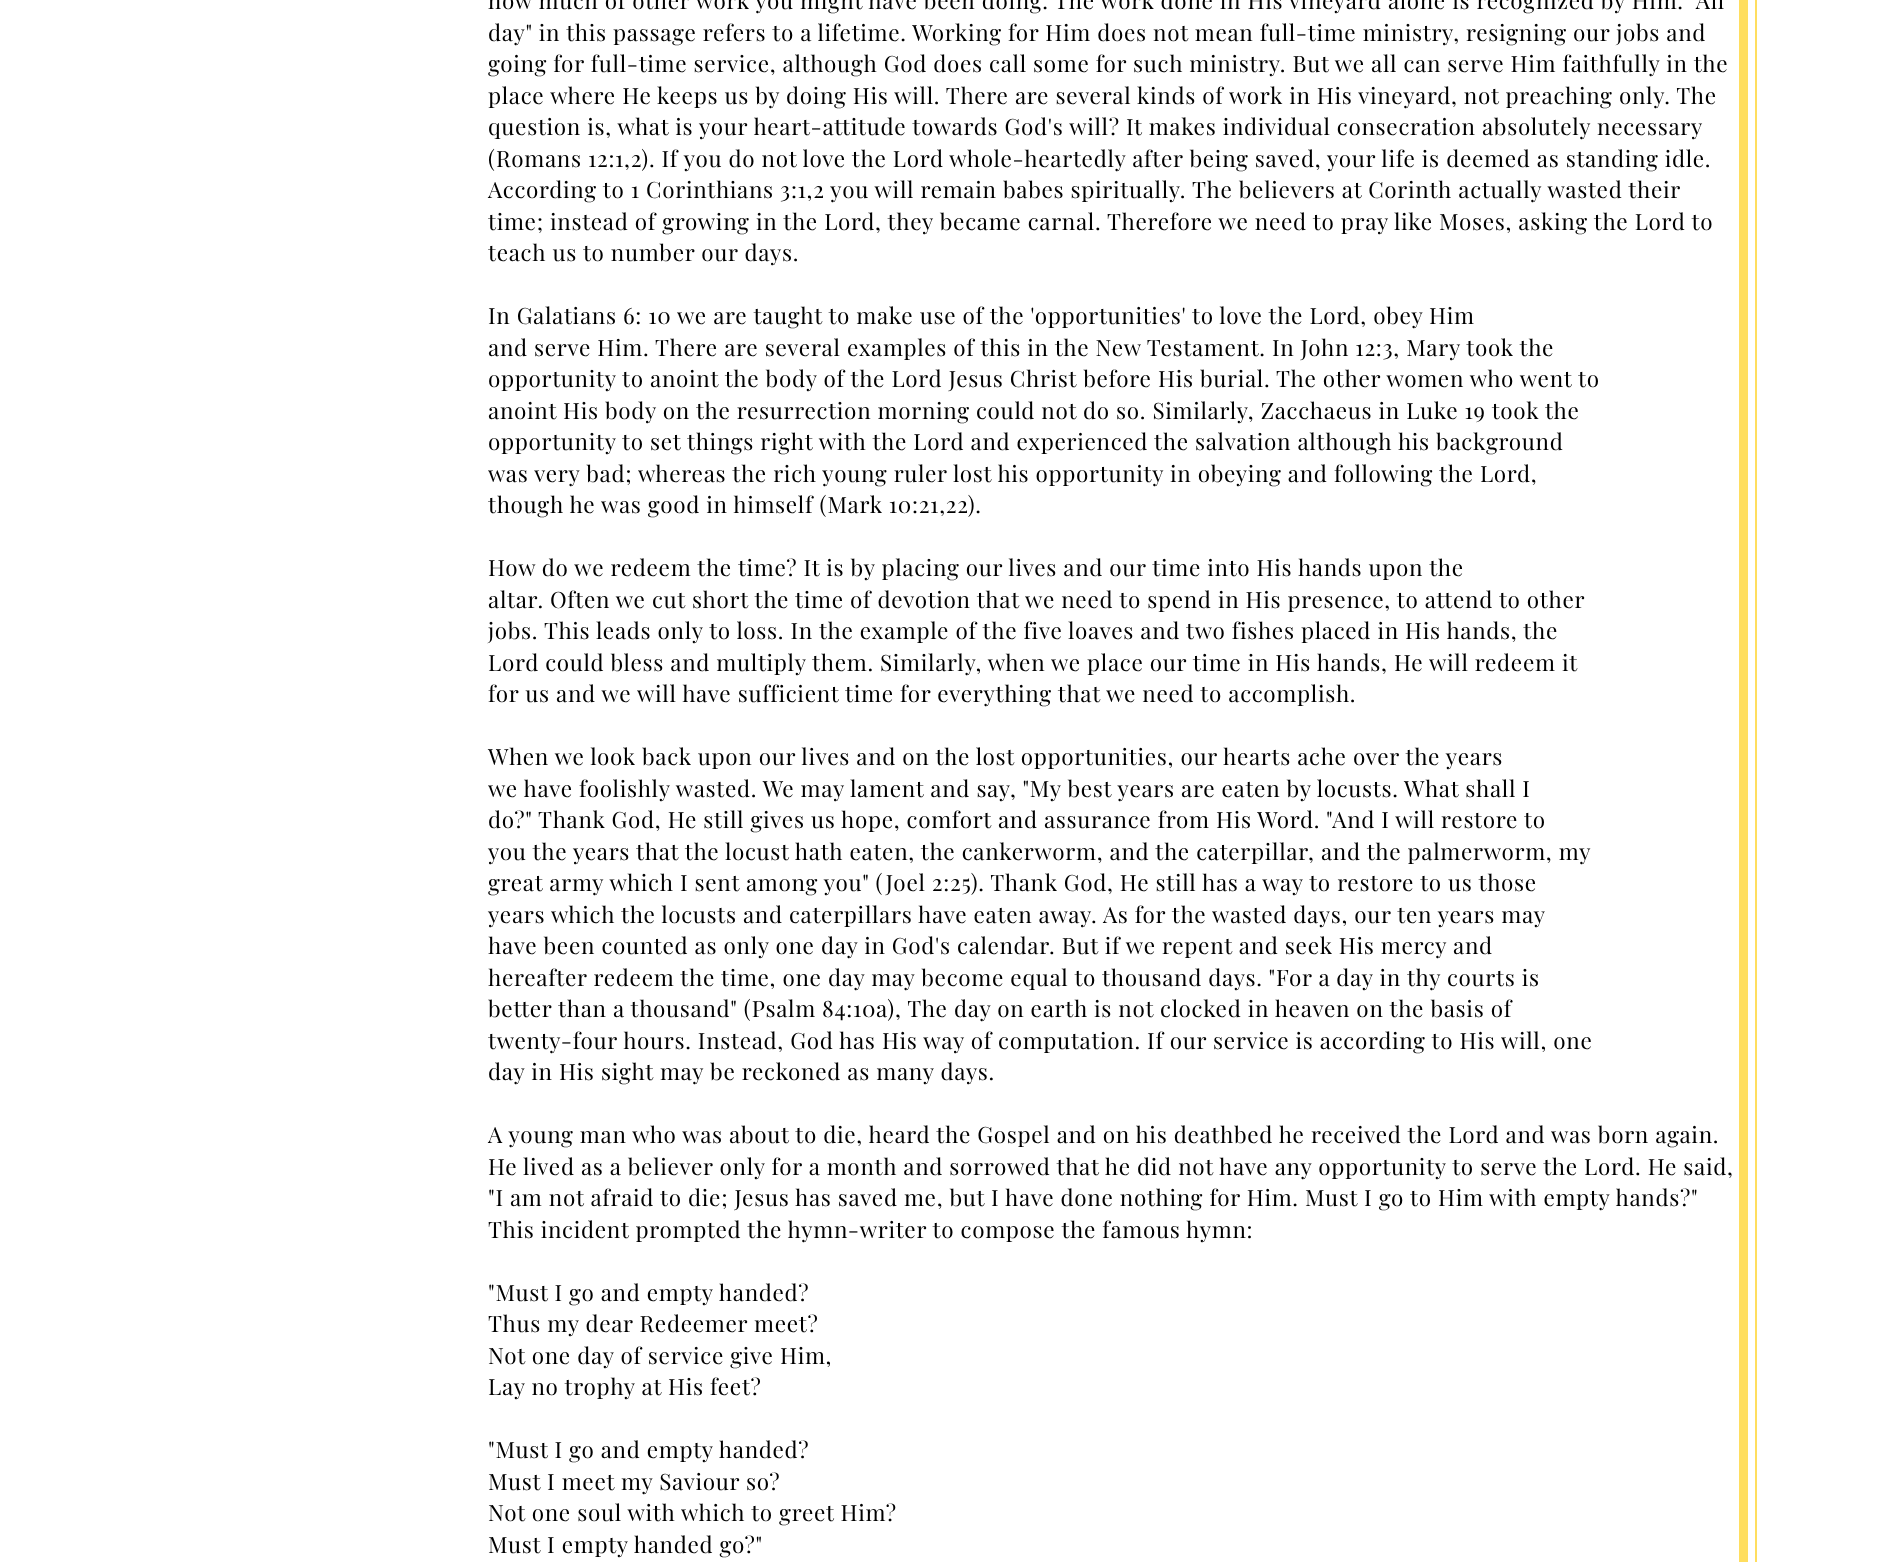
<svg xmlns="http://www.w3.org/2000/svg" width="1885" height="1562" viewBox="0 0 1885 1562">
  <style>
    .t1 { font: 22.5px Playfair Display; letter-spacing: 0.68px; fill: #000; }
  </style>
  <rect width="100%" height="100%" fill="#fff"/>
  <text x="488" y="9" class="t1">how much of other work you might have been doing. The work done in His vineyard alone is recognized by Him. "All</text>
  <text x="488" y="41" class="t1">day" in this passage refers to a lifetime. Working for Him does not mean full-time ministry, resigning our jobs and</text>
  <text x="488" y="72" class="t1">going for full-time service, although God does call some for such ministry. But we all can serve Him faithfully in the</text>
  <text x="488" y="104" class="t1">place where He keeps us by doing His will. There are several kinds of work in His vineyard, not preaching only. The</text>
  <text x="488" y="135" class="t1">question is, what is your heart-attitude towards God's will? It makes individual consecration absolutely necessary</text>
  <text x="488" y="167" class="t1">(Romans 12:1,2). If you do not love the Lord whole-heartedly after being saved, your life is deemed as standing idle.</text>
  <text x="488" y="198" class="t1">According to 1 Corinthians 3:1,2 you will remain babes spiritually. The believers at Corinth actually wasted their</text>
  <text x="488" y="230" class="t1">time; instead of growing in the Lord, they became carnal. Therefore we need to pray like Moses, asking the Lord to</text>
  <text x="488" y="261" class="t1">teach us to number our days.</text>
  <text x="488" y="324" class="t1">In Galatians 6: 10 we are taught to make use of the 'opportunities' to love the Lord, obey Him</text>
  <text x="488" y="356" class="t1">and serve Him. There are several examples of this in the New Testament. In John 12:3, Mary took the</text>
  <text x="488" y="387" class="t1">opportunity to anoint the body of the Lord Jesus Christ before His burial. The other women who went to</text>
  <text x="488" y="419" class="t1">anoint His body on the resurrection morning could not do so. Similarly, Zacchaeus in Luke 19 took the</text>
  <text x="488" y="450" class="t1">opportunity to set things right with the Lord and experienced the salvation although his background</text>
  <text x="488" y="482" class="t1">was very bad; whereas the rich young ruler lost his opportunity in obeying and following the Lord,</text>
  <text x="488" y="513" class="t1">though he was good in himself (Mark 10:21,22).</text>
  <text x="488" y="576" class="t1">How do we redeem the time? It is by placing our lives and our time into His hands upon the</text>
  <text x="488" y="608" class="t1">altar. Often we cut short the time of devotion that we need to spend in His presence, to attend to other</text>
  <text x="488" y="639" class="t1">jobs. This leads only to loss. In the example of the five loaves and two fishes placed in His hands, the</text>
  <text x="488" y="671" class="t1">Lord could bless and multiply them. Similarly, when we place our time in His hands, He will redeem it</text>
  <text x="488" y="702" class="t1">for us and we will have sufficient time for everything that we need to accomplish.</text>
  <text x="488" y="765" class="t1">When we look back upon our lives and on the lost opportunities, our hearts ache over the years</text>
  <text x="488" y="797" class="t1">we have foolishly wasted. We may lament and say, "My best years are eaten by locusts. What shall I</text>
  <text x="488" y="828" class="t1">do?" Thank God, He still gives us hope, comfort and assurance from His Word. "And I will restore to</text>
  <text x="488" y="860" class="t1">you the years that the locust hath eaten, the cankerworm, and the caterpillar, and the palmerworm, my</text>
  <text x="488" y="891" class="t1">great army which I sent among you" (Joel 2:25). Thank God, He still has a way to restore to us those</text>
  <text x="488" y="923" class="t1">years which the locusts and caterpillars have eaten away. As for the wasted days, our ten years may</text>
  <text x="488" y="954" class="t1">have been counted as only one day in God's calendar. But if we repent and seek His mercy and</text>
  <text x="488" y="986" class="t1">hereafter redeem the time, one day may become equal to thousand days. "For a day in thy courts is</text>
  <text x="488" y="1017" class="t1">better than a thousand" (Psalm 84:10a), The day on earth is not clocked in heaven on the basis of</text>
  <text x="488" y="1049" class="t1">twenty-four hours. Instead, God has His way of computation. If our service is according to His will, one</text>
  <text x="488" y="1080" class="t1">day in His sight may be reckoned as many days.</text>
  <text x="488" y="1143" class="t1">A young man who was about to die, heard the Gospel and on his deathbed he received the Lord and was born again.</text>
  <text x="488" y="1175" class="t1">He lived as a believer only for a month and sorrowed that he did not have any opportunity to serve the Lord. He said,</text>
  <text x="488" y="1206" class="t1">"I am not afraid to die; Jesus has saved me, but I have done nothing for Him. Must I go to Him with empty hands?"</text>
  <text x="488" y="1238" class="t1">This incident prompted the hymn-writer to compose the famous hymn:</text>
  <text x="488" y="1301" class="t1">"Must I go and empty handed?</text>
  <text x="488" y="1332" class="t1">Thus my dear Redeemer meet?</text>
  <text x="488" y="1364" class="t1">Not one day of service give Him,</text>
  <text x="488" y="1395" class="t1">Lay no trophy at His feet?</text>
  <text x="488" y="1458" class="t1">"Must I go and empty handed?</text>
  <text x="488" y="1490" class="t1">Must I meet my Saviour so?</text>
  <text x="488" y="1521" class="t1">Not one soul with which to greet Him?</text>
  <text x="488" y="1553" class="t1">Must I empty handed go?"</text>
  <rect x="1755" y="0" width="2" height="1562" fill="#ffde5f"/>
  <rect x="1739" y="0" width="9" height="1562" fill="#ffde5f"/>
</svg>
